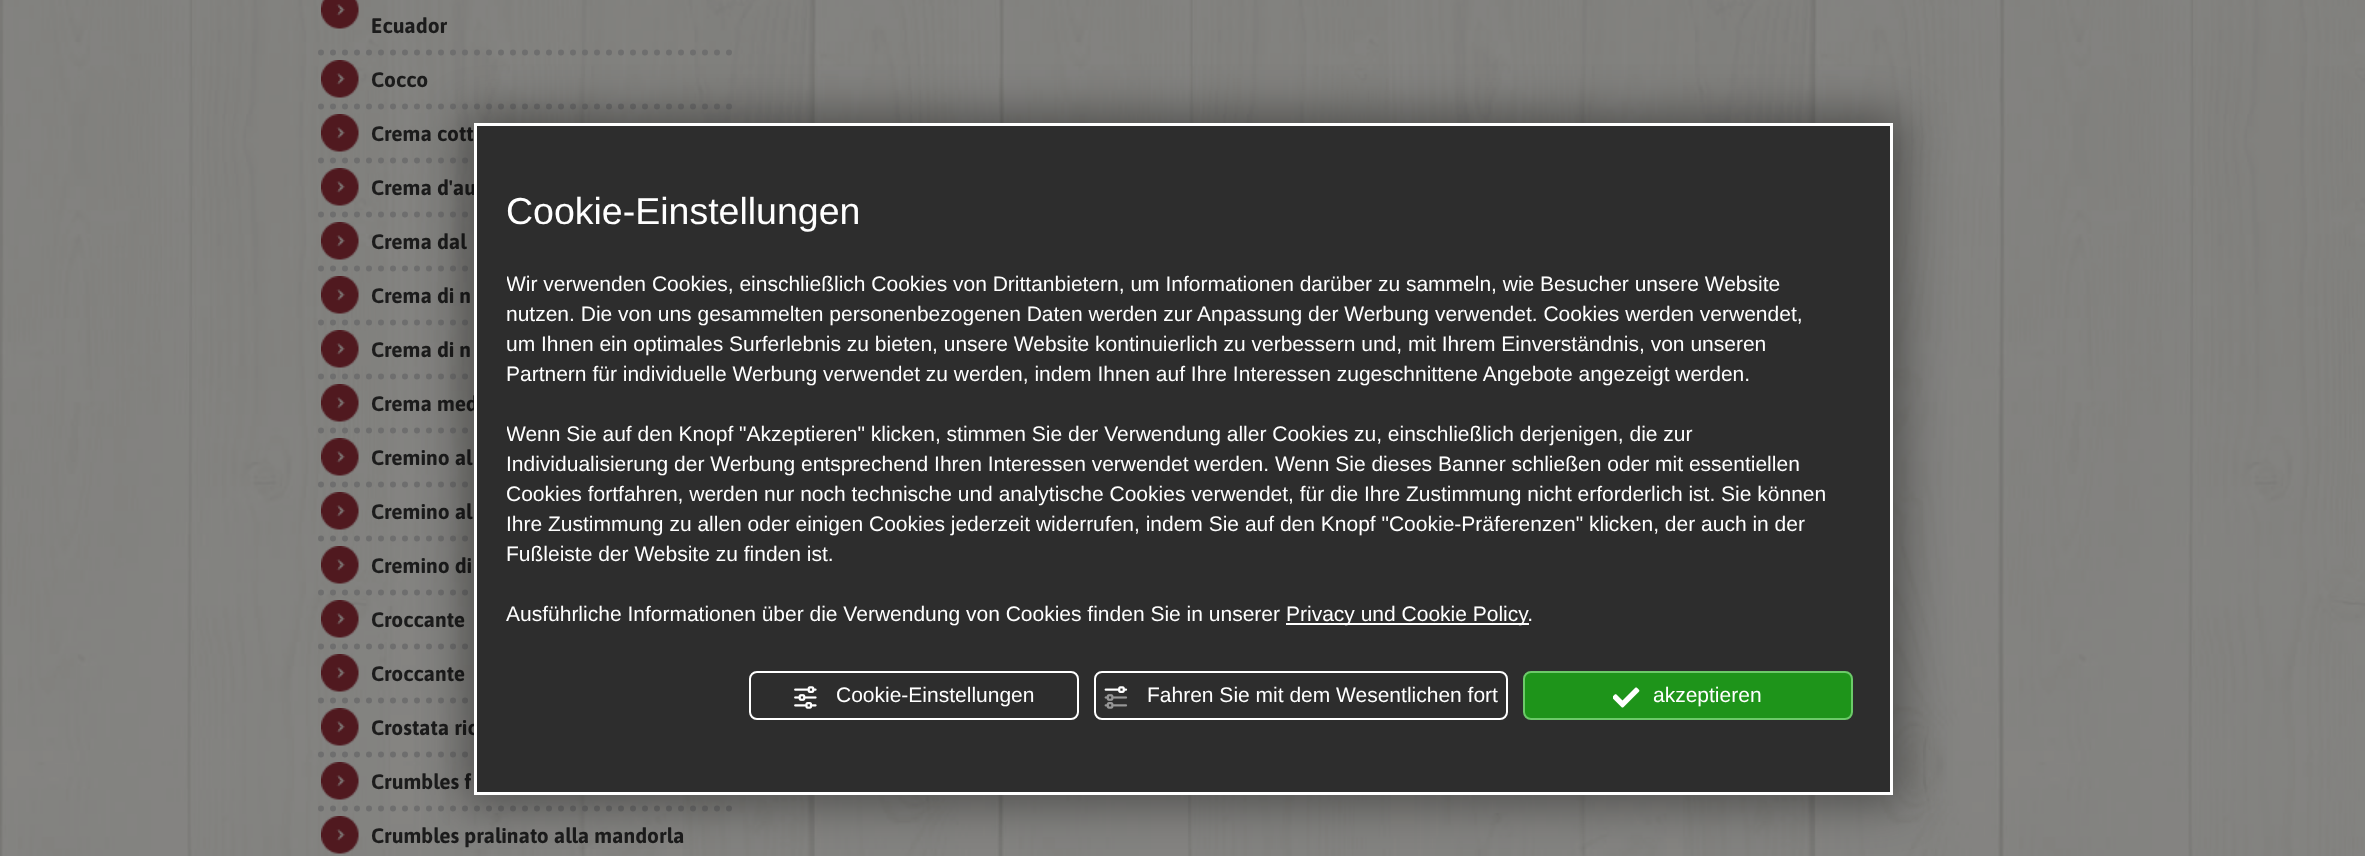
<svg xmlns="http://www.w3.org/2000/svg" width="2365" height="856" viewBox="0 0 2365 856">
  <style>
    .t1 { font: bold 21px Asap; fill: #1c1c1c; }
    .t2 { font: 37.5px Liberation Sans; fill: #fff; }
    .t3 { font: 21px Liberation Sans; fill: #fff; }
  </style>
  <defs>
    <clipPath id="clip1"><rect x="507" y="269" width="1353" height="360"/></clipPath>
  </defs>
  <rect width="100%" height="100%" fill="#fff"/>
  <image x="0" y="0" width="2365" height="856" href="images/1.png"/>
  <image x="321" y="0" width="38" height="29" href="images/2.png"/>
  <path d="M321 52.5H741" fill="none" stroke="#6e6e6e" stroke-width="6" stroke-linecap="round" stroke-dasharray="0 12"/>
  <text x="371" y="33" class="t1">Ecuador</text>
  <image x="321" y="60" width="38" height="38" href="images/3.png"/>
  <path d="M321 106.5H741" fill="none" stroke="#6e6e6e" stroke-width="6" stroke-linecap="round" stroke-dasharray="0 12"/>
  <text x="371" y="87" class="t1">Cocco</text>
  <image x="321" y="114" width="38" height="38" href="images/4.png"/>
  <path d="M321 160.5H741" fill="none" stroke="#6e6e6e" stroke-width="6" stroke-linecap="round" stroke-dasharray="0 12"/>
  <text x="371" y="141" class="t1">Crema cott</text>
  <image x="321" y="168" width="38" height="38" href="images/5.png"/>
  <path d="M321 214.5H741" fill="none" stroke="#6e6e6e" stroke-width="6" stroke-linecap="round" stroke-dasharray="0 12"/>
  <text x="371" y="195" class="t1">Crema d'au</text>
  <image x="321" y="222" width="38" height="38" href="images/6.png"/>
  <path d="M321 268.5H741" fill="none" stroke="#6e6e6e" stroke-width="6" stroke-linecap="round" stroke-dasharray="0 12"/>
  <text x="371" y="249" class="t1">Crema dal</text>
  <image x="321" y="276" width="38" height="38" href="images/7.png"/>
  <path d="M321 322.5H741" fill="none" stroke="#6e6e6e" stroke-width="6" stroke-linecap="round" stroke-dasharray="0 12"/>
  <text x="371" y="303" class="t1">Crema di n</text>
  <image x="321" y="330" width="38" height="38" href="images/8.png"/>
  <path d="M321 376.5H741" fill="none" stroke="#6e6e6e" stroke-width="6" stroke-linecap="round" stroke-dasharray="0 12"/>
  <text x="371" y="357" class="t1">Crema di n</text>
  <image x="321" y="384" width="38" height="38" href="images/9.png"/>
  <path d="M321 430.5H741" fill="none" stroke="#6e6e6e" stroke-width="6" stroke-linecap="round" stroke-dasharray="0 12"/>
  <text x="371" y="411" class="t1">Crema med</text>
  <image x="321" y="438" width="38" height="38" href="images/10.png"/>
  <path d="M321 484.5H741" fill="none" stroke="#6e6e6e" stroke-width="6" stroke-linecap="round" stroke-dasharray="0 12"/>
  <text x="371" y="465" class="t1">Cremino al</text>
  <image x="321" y="492" width="38" height="38" href="images/11.png"/>
  <path d="M321 538.5H741" fill="none" stroke="#6e6e6e" stroke-width="6" stroke-linecap="round" stroke-dasharray="0 12"/>
  <text x="371" y="519" class="t1">Cremino al</text>
  <image x="321" y="546" width="38" height="38" href="images/12.png"/>
  <path d="M321 592.5H741" fill="none" stroke="#6e6e6e" stroke-width="6" stroke-linecap="round" stroke-dasharray="0 12"/>
  <text x="371" y="573" class="t1">Cremino di</text>
  <image x="321" y="600" width="38" height="38" href="images/13.png"/>
  <path d="M321 646.5H741" fill="none" stroke="#6e6e6e" stroke-width="6" stroke-linecap="round" stroke-dasharray="0 12"/>
  <text x="371" y="627" class="t1">Croccante</text>
  <image x="321" y="654" width="38" height="38" href="images/14.png"/>
  <path d="M321 700.5H741" fill="none" stroke="#6e6e6e" stroke-width="6" stroke-linecap="round" stroke-dasharray="0 12"/>
  <text x="371" y="681" class="t1">Croccante</text>
  <image x="321" y="708" width="38" height="38" href="images/15.png"/>
  <path d="M321 754.5H741" fill="none" stroke="#6e6e6e" stroke-width="6" stroke-linecap="round" stroke-dasharray="0 12"/>
  <text x="371" y="735" class="t1">Crostata ric</text>
  <image x="321" y="762" width="38" height="38" href="images/16.png"/>
  <path d="M321 808.5H741" fill="none" stroke="#6e6e6e" stroke-width="6" stroke-linecap="round" stroke-dasharray="0 12"/>
  <text x="371" y="789" class="t1">Crumbles f</text>
  <image x="321" y="816" width="38" height="38" href="images/17.png"/>
  <text x="371" y="843" class="t1">Crumbles pralinato alla mandorla</text>
  <rect x="464" y="113" width="1440" height="693" fill="#00000061" filter="blur(22px)"/>
  <rect x="475.5" y="124.5" width="1416" height="669" fill="#2d2d2d" stroke="#fff" stroke-width="3"/>
  <text x="506" y="224" class="t2">Cookie-Einstellungen</text>
  <g clip-path="url(#clip1)">
    <text x="506" y="291" class="t3">Wir verwenden Cookies, einschließlich Cookies von Drittanbietern, um Informationen darüber zu sammeln, wie Besucher unsere Website</text>
  </g>
  <text x="506" y="321" class="t3">nutzen. Die von uns gesammelten personenbezogenen Daten werden zur Anpassung der Werbung verwendet. Cookies werden verwendet,</text>
  <text x="506" y="351" class="t3">um Ihnen ein optimales Surferlebnis zu bieten, unsere Website kontinuierlich zu verbessern und, mit Ihrem Einverständnis, von unseren</text>
  <text x="506" y="381" class="t3">Partnern für individuelle Werbung verwendet zu werden, indem Ihnen auf Ihre Interessen zugeschnittene Angebote angezeigt werden.</text>
  <g clip-path="url(#clip1)">
    <text x="506" y="441" class="t3">Wenn Sie auf den Knopf "Akzeptieren" klicken, stimmen Sie der Verwendung aller Cookies zu, einschließlich derjenigen, die zur</text>
  </g>
  <text x="506" y="471" class="t3">Individualisierung der Werbung entsprechend Ihren Interessen verwendet werden. Wenn Sie dieses Banner schließen oder mit essentiellen</text>
  <text x="506" y="501" class="t3">Cookies fortfahren, werden nur noch technische und analytische Cookies verwendet, für die Ihre Zustimmung nicht erforderlich ist. Sie können</text>
  <text x="506" y="531" class="t3">Ihre Zustimmung zu allen oder einigen Cookies jederzeit widerrufen, indem Sie auf den Knopf "Cookie-Präferenzen" klicken, der auch in der</text>
  <text x="506" y="561" class="t3">Fußleiste der Website zu finden ist.</text>
  <text x="506" y="621" class="t3">Ausführliche Informationen über die Verwendung von Cookies finden Sie in unserer</text>
  <rect x="1286" y="623" width="243" height="2" fill="#fff"/>
  <text x="1286" y="621" class="t3">Privacy und Cookie Policy.</text>
  <rect x="750" y="672" width="328" height="47" rx="7" fill="none" stroke="#fff" stroke-width="2"/>
  <image x="794" y="686" width="23" height="23" href="images/18.png"/>
  <text x="836" y="702" class="t3">Cookie-Einstellungen</text>
  <rect x="1095" y="672" width="412" height="47" rx="7" fill="none" stroke="#fff" stroke-width="2"/>
  <image x="1104" y="686" width="24" height="23" href="images/19.png"/>
  <text x="1147" y="702" class="t3">Fahren Sie mit dem Wesentlichen fort</text>
  <rect x="1524" y="672" width="328" height="47" rx="7" fill="#1e941a" stroke="#6cca69" stroke-width="2"/>
  <image x="1613" y="687" width="27" height="21" href="images/20.png"/>
  <text x="1653" y="702" class="t3">akzeptieren</text>
</svg>
